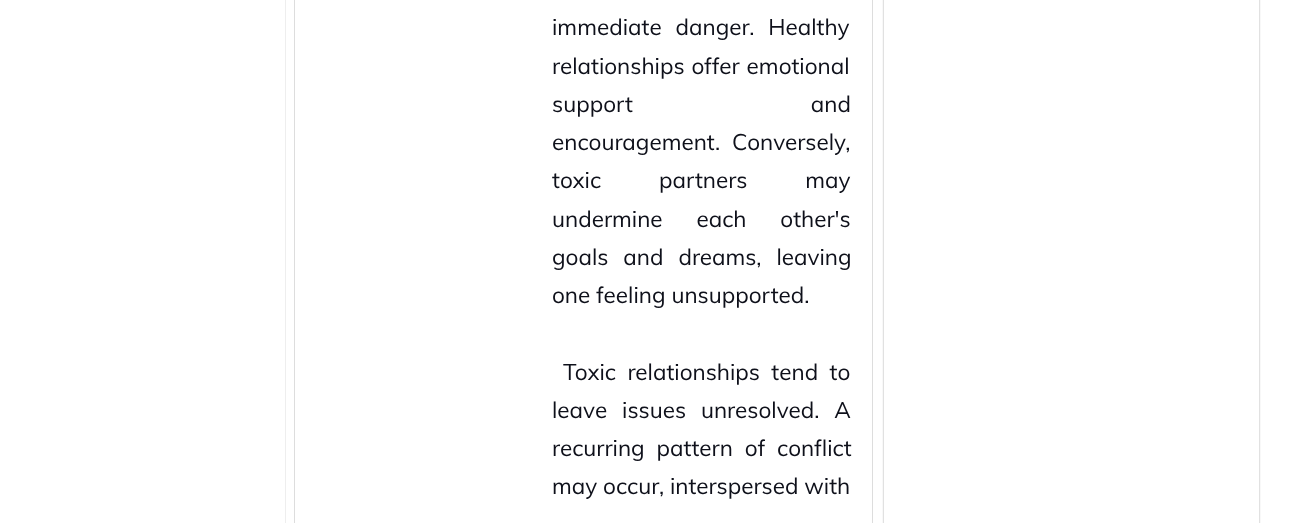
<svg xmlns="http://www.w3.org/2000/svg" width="1315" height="523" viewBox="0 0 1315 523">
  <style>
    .t1 { font: 22.5px Muli; fill: #0e101a; }
  </style>
  <defs>
    <clipPath id="clip1"><path d="M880 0H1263V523H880ZM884-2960H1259V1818H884Z" clip-rule="evenodd"/></clipPath>
  </defs>
  <rect width="100%" height="100%" fill="#fff"/>
  <rect x="285" y="0" width="1" height="523" fill="#eee"/>
  <rect x="294.5" y="-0.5" width="578" height="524" fill="none" stroke="#ddd"/>
  <text x="552" y="35" word-spacing="8" class="t1">immediate danger. Healthy</text>
  <text x="552" y="74" word-spacing="1" class="t1">relationships offer emotional</text>
  <text x="552" y="112" word-spacing="172" class="t1">support and</text>
  <text x="552" y="150" word-spacing="6" class="t1">encouragement. Conversely,</text>
  <text x="552" y="188" word-spacing="52" class="t1">toxic partners may</text>
  <text x="552" y="227" word-spacing="28" class="t1">undermine each other's</text>
  <text x="552" y="265" word-spacing="9" class="t1">goals and dreams, leaving</text>
  <text x="552" y="303" class="t1">one feeling unsupported.</text>
  <text x="563" y="380" word-spacing="5.5" class="t1">Toxic relationships tend to</text>
  <text x="552" y="418" word-spacing="9" class="t1">leave issues unresolved. A</text>
  <text x="552" y="456" word-spacing="6" class="t1">recurring pattern of conflict</text>
  <text x="552" y="494" class="t1">may occur, interspersed with</text>
  <g clip-path="url(#clip1)">
    <rect x="884" y="-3" width="375" height="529" fill="#a5a5a5" filter="blur(1px)"/>
  </g>
</svg>
